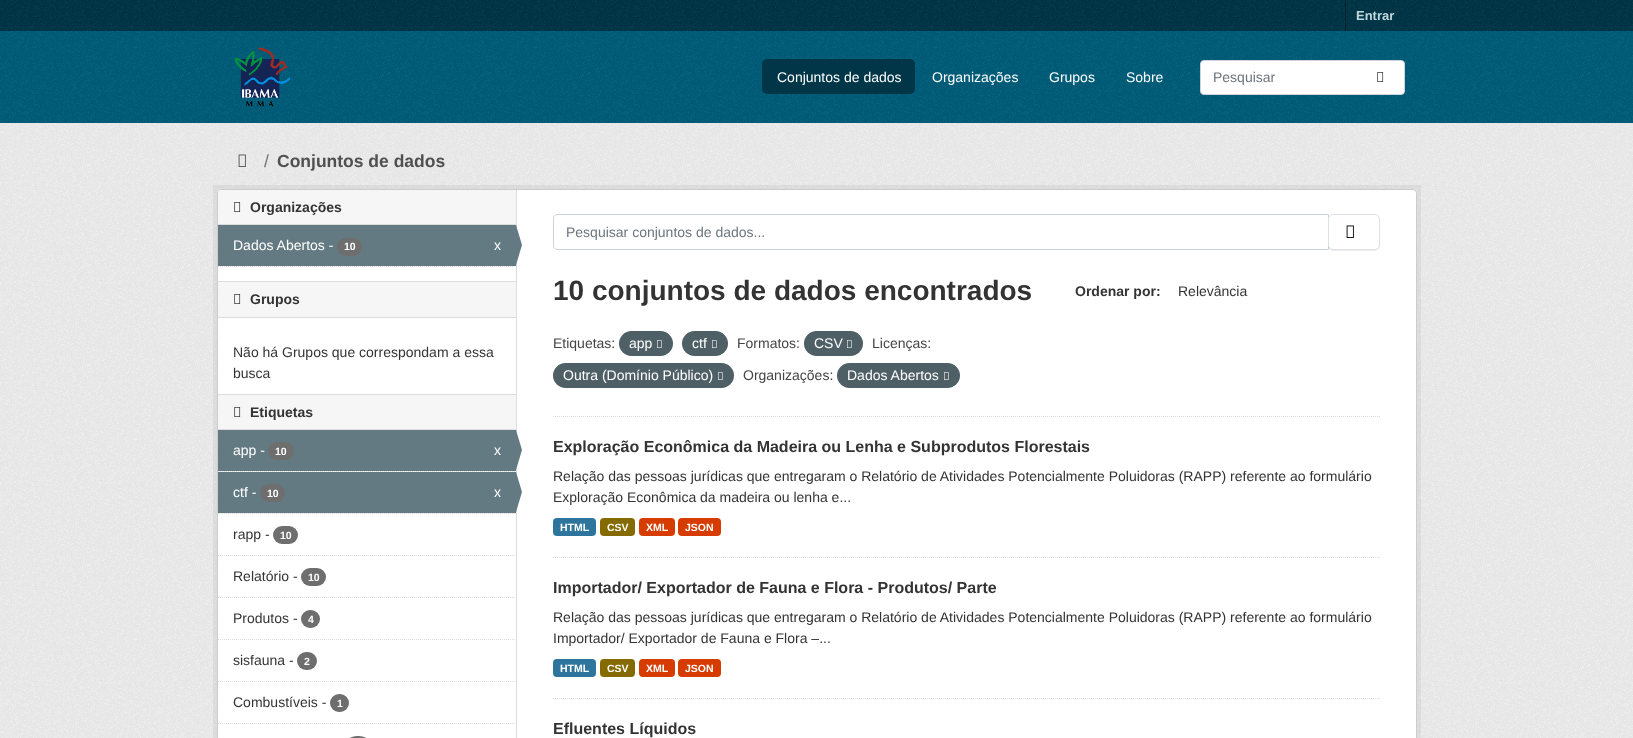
<svg xmlns="http://www.w3.org/2000/svg" width="1633" height="738" viewBox="0 0 1633 738">
  <style>
    .t1 { font: bold 13px Liberation Sans; fill: #bfd7de; }
    .t2 { font: 14px Liberation Sans; fill: #fff; }
    .t3 { font: 14px Liberation Sans; fill: #6c757d; }
    .t4 { font: 17.5px Liberation Sans; fill: #6c757d; }
    .t5 { font: bold 17.5px Liberation Sans; fill: #505050; }
    .t6 { font: bold 14px Liberation Sans; fill: #333; }
    .t7 { font: bold 10.5px Liberation Sans; fill: #fff; }
    .t8 { font: 14px Liberation Sans; fill: #333; }
    .t9 { font: bold 28px Liberation Sans; fill: #333; }
    .t10 { font: 14px Liberation Sans; fill: #444; }
    .t11 { font: bold 16px Liberation Sans; fill: #333; }
  </style>
  <rect width="100%" height="100%" fill="#003647"/>
  <image x="0" y="0" width="1633" height="31" href="images/1.png"/>
  <rect x="1345" y="0" width="1" height="31" fill="#00232e"/>
  <text x="1356" y="20" class="t1">Entrar</text>
  <rect x="0" y="31" width="1633" height="92" fill="#005d7a"/>
  <image x="0" y="31" width="1633" height="92" href="images/2.png"/>
  <image x="234" y="47" width="57" height="60" href="images/3.png"/>
  <rect x="762" y="59" width="153" height="35" rx="5" fill="#003647"/>
  <text x="777" y="82" class="t2">Conjuntos de dados</text>
  <text x="932" y="82" class="t2">Organizações</text>
  <text x="1049" y="82" class="t2">Grupos</text>
  <text x="1126" y="82" class="t2">Sobre</text>
  <rect x="1200.5" y="60.5" width="204" height="34" rx="3.5" fill="#fff" stroke="#ced4da"/>
  <text x="1213" y="82" class="t3">Pesquisar</text>
  <image x="1377" y="72" width="7" height="10" href="images/4.png"/>
  <rect x="0" y="123" width="1633" height="615" fill="#eee"/>
  <image x="0" y="123" width="1633" height="615" href="images/5.png"/>
  <image x="238" y="154" width="8" height="13" href="images/6.png"/>
  <text x="264" y="167" class="t4">/</text>
  <text x="277" y="167" class="t5">Conjuntos de dados</text>
  <rect x="215" y="187" width="1204" height="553" fill="none" stroke="#0000000d" stroke-width="4"/>
  <rect x="217.5" y="189.5" width="1199" height="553" rx="3.5" fill="#fff" stroke="#ccc"/>
  <path d="M221 190H516V225H218V193C218 191.5 219.5 190 221 190Z" fill="#f6f6f6"/>
  <rect x="218" y="224" width="298" height="1" fill="#ddd"/>
  <image x="234" y="202" width="7" height="10" href="images/7.png"/>
  <text x="250" y="212" class="t6">Organizações</text>
  <rect x="218" y="225" width="298" height="41" fill="#647a82"/>
  <text x="233" y="250" class="t2">Dados Abertos -</text>
  <rect x="337" y="238" width="25" height="18" rx="9" fill="#6e6e6e"/>
  <text x="344" y="250" class="t7">10</text>
  <text x="494" y="250" class="t2">x</text>
  <rect x="516" y="190" width="1" height="548" fill="#ddd"/>
  <path d="M516 265V225L522 245Z" fill="#647a82"/>
  <path d="M218 266.5H516" fill="none" stroke="#ddd" stroke-dasharray="1 1"/>
  <rect x="218" y="282" width="298" height="35" fill="#f6f6f6"/>
  <rect x="218" y="281" width="298" height="1" fill="#ddd"/>
  <rect x="218" y="317" width="298" height="1" fill="#ddd"/>
  <image x="234" y="294" width="7" height="10" href="images/7.png"/>
  <text x="250" y="304" class="t6">Grupos</text>
  <text x="233" y="357" class="t8">Não há Grupos que correspondam a essa</text>
  <text x="233" y="378" class="t8">busca</text>
  <rect x="218" y="395" width="298" height="34" fill="#f6f6f6"/>
  <rect x="218" y="394" width="298" height="1" fill="#ddd"/>
  <rect x="218" y="429" width="298" height="1" fill="#ddd"/>
  <image x="234" y="407" width="7" height="10" href="images/7.png"/>
  <text x="250" y="417" class="t6">Etiquetas</text>
  <rect x="219" y="471" width="297" height="1" fill="#f6f6f6"/>
  <path d="M218 471.5H516" fill="none" stroke="#ddd" stroke-dasharray="1 1"/>
  <rect x="218" y="430" width="298" height="41" fill="#647a82"/>
  <text x="233" y="455" class="t2">app -</text>
  <rect x="268" y="442" width="26" height="18" rx="9" fill="#6e6e6e"/>
  <text x="275" y="455" class="t7">10</text>
  <text x="494" y="455" class="t2">x</text>
  <path d="M516 470V430L522 450Z" fill="#647a82"/>
  <rect x="219" y="513" width="297" height="1" fill="#f6f6f6"/>
  <path d="M218 513.5H516" fill="none" stroke="#ddd" stroke-dasharray="1 1"/>
  <rect x="218" y="472" width="298" height="41" fill="#647a82"/>
  <text x="233" y="497" class="t2">ctf -</text>
  <rect x="260" y="484" width="25" height="18" rx="9" fill="#6e6e6e"/>
  <text x="267" y="497" class="t7">10</text>
  <text x="494" y="497" class="t2">x</text>
  <path d="M516 512V472L522 492Z" fill="#647a82"/>
  <path d="M218 555.5H516" fill="none" stroke="#ddd" stroke-dasharray="1 1"/>
  <text x="233" y="539" class="t8">rapp -</text>
  <rect x="273" y="526" width="25" height="18" rx="9" fill="#6e6e6e"/>
  <text x="280" y="539" class="t7">10</text>
  <path d="M218 597.5H516" fill="none" stroke="#ddd" stroke-dasharray="1 1"/>
  <text x="233" y="581" class="t8">Relatório -</text>
  <rect x="301" y="568" width="25" height="18" rx="9" fill="#6e6e6e"/>
  <text x="308" y="581" class="t7">10</text>
  <path d="M218 639.5H516" fill="none" stroke="#ddd" stroke-dasharray="1 1"/>
  <text x="233" y="623" class="t8">Produtos -</text>
  <rect x="301" y="610" width="19" height="18" rx="9" fill="#6e6e6e"/>
  <text x="308" y="623" class="t7">4</text>
  <path d="M218 681.5H516" fill="none" stroke="#ddd" stroke-dasharray="1 1"/>
  <text x="233" y="665" class="t8">sisfauna -</text>
  <rect x="297" y="652" width="20" height="18" rx="9" fill="#6e6e6e"/>
  <text x="304" y="665" class="t7">2</text>
  <path d="M218 723.5H516" fill="none" stroke="#ddd" stroke-dasharray="1 1"/>
  <text x="233" y="707" class="t8">Combustíveis -</text>
  <rect x="330" y="694" width="19" height="18" rx="9" fill="#6e6e6e"/>
  <text x="337" y="707" class="t7">1</text>
  <rect x="348" y="736" width="20" height="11" rx="9" fill="#6e6e6e"/>
  <path d="M553 416.5H1380" fill="none" stroke="#ddd" stroke-dasharray="1 1"/>
  <path d="M557 214.5H1328.5V249.5H557C555 249.5 553.5 248 553.5 246V218C553.5 216 555 214.5 557 214.5Z" fill="none" stroke="#ced4da"/>
  <text x="566" y="237" class="t3">Pesquisar conjuntos de dados...</text>
  <rect x="1328" y="215" width="52" height="36" rx="5" fill="#00000012" filter="blur(0.5px)"/>
  <rect x="1328.5" y="214.5" width="51" height="35" rx="4.5" fill="#fff" stroke="#dee2e6"/>
  <image x="1346" y="225" width="8" height="13" href="images/8.png"/>
  <text x="553" y="300" class="t9">10 conjuntos de dados encontrados</text>
  <text x="1075" y="296" class="t6">Ordenar por:</text>
  <text x="1178" y="296" class="t8">Relevância</text>
  <text x="553" y="348" class="t10">Etiquetas:</text>
  <rect x="619" y="331" width="54" height="25" rx="12.5" fill="#4e5f65"/>
  <text x="629" y="348" class="t2">app</text>
  <image x="657" y="340" width="5" height="8" href="images/9.png"/>
  <rect x="682" y="331" width="46" height="25" rx="12.5" fill="#4e5f65"/>
  <text x="692" y="348" class="t2">ctf</text>
  <image x="712" y="340" width="5" height="8" href="images/9.png"/>
  <text x="737" y="348" class="t10">Formatos:</text>
  <rect x="804" y="331" width="59" height="25" rx="12.5" fill="#4e5f65"/>
  <text x="814" y="348" class="t2">CSV</text>
  <image x="847" y="340" width="5" height="8" href="images/9.png"/>
  <text x="872" y="348" class="t10">Licenças:</text>
  <rect x="553" y="363" width="181" height="25" rx="12.5" fill="#4e5f65"/>
  <text x="563" y="380" class="t2">Outra (Domínio Público)</text>
  <image x="718" y="372" width="5" height="8" href="images/9.png"/>
  <text x="743" y="380" class="t10">Organizações:</text>
  <rect x="837" y="363" width="123" height="25" rx="12.5" fill="#4e5f65"/>
  <text x="847" y="380" class="t2">Dados Abertos</text>
  <image x="944" y="372" width="5" height="8" href="images/9.png"/>
  <path d="M553 557.5H1380" fill="none" stroke="#ddd" stroke-dasharray="1 1"/>
  <text x="553" y="452" class="t11">Exploração Econômica da Madeira ou Lenha e Subprodutos Florestais</text>
  <text x="553" y="481" class="t8">Relação das pessoas jurídicas que entregaram o Relatório de Atividades Potencialmente Poluidoras (RAPP) referente ao formulário</text>
  <text x="553" y="502" class="t8">Exploração Econômica da madeira ou lenha e...</text>
  <rect x="553" y="518" width="43" height="18" rx="4" fill="#2e759e"/>
  <text x="560" y="531" class="t7">HTML</text>
  <rect x="600" y="518" width="35" height="18" rx="4" fill="#856a00"/>
  <text x="607" y="531" class="t7">CSV</text>
  <rect x="639" y="518" width="36" height="18" rx="4" fill="#d63b00"/>
  <text x="646" y="531" class="t7">XML</text>
  <rect x="678" y="518" width="43" height="18" rx="4" fill="#d63b00"/>
  <text x="685" y="531" class="t7">JSON</text>
  <path d="M553 698.5H1380" fill="none" stroke="#ddd" stroke-dasharray="1 1"/>
  <text x="553" y="593" class="t11">Importador/ Exportador de Fauna e Flora - Produtos/ Parte</text>
  <text x="553" y="622" class="t8">Relação das pessoas jurídicas que entregaram o Relatório de Atividades Potencialmente Poluidoras (RAPP) referente ao formulário</text>
  <text x="553" y="643" class="t8">Importador/ Exportador de Fauna e Flora –...</text>
  <rect x="553" y="659" width="43" height="18" rx="4" fill="#2e759e"/>
  <text x="560" y="672" class="t7">HTML</text>
  <rect x="600" y="659" width="35" height="18" rx="4" fill="#856a00"/>
  <text x="607" y="672" class="t7">CSV</text>
  <rect x="639" y="659" width="36" height="18" rx="4" fill="#d63b00"/>
  <text x="646" y="672" class="t7">XML</text>
  <rect x="678" y="659" width="43" height="18" rx="4" fill="#d63b00"/>
  <text x="685" y="672" class="t7">JSON</text>
  <text x="553" y="734" class="t11">Efluentes Líquidos</text>
</svg>
